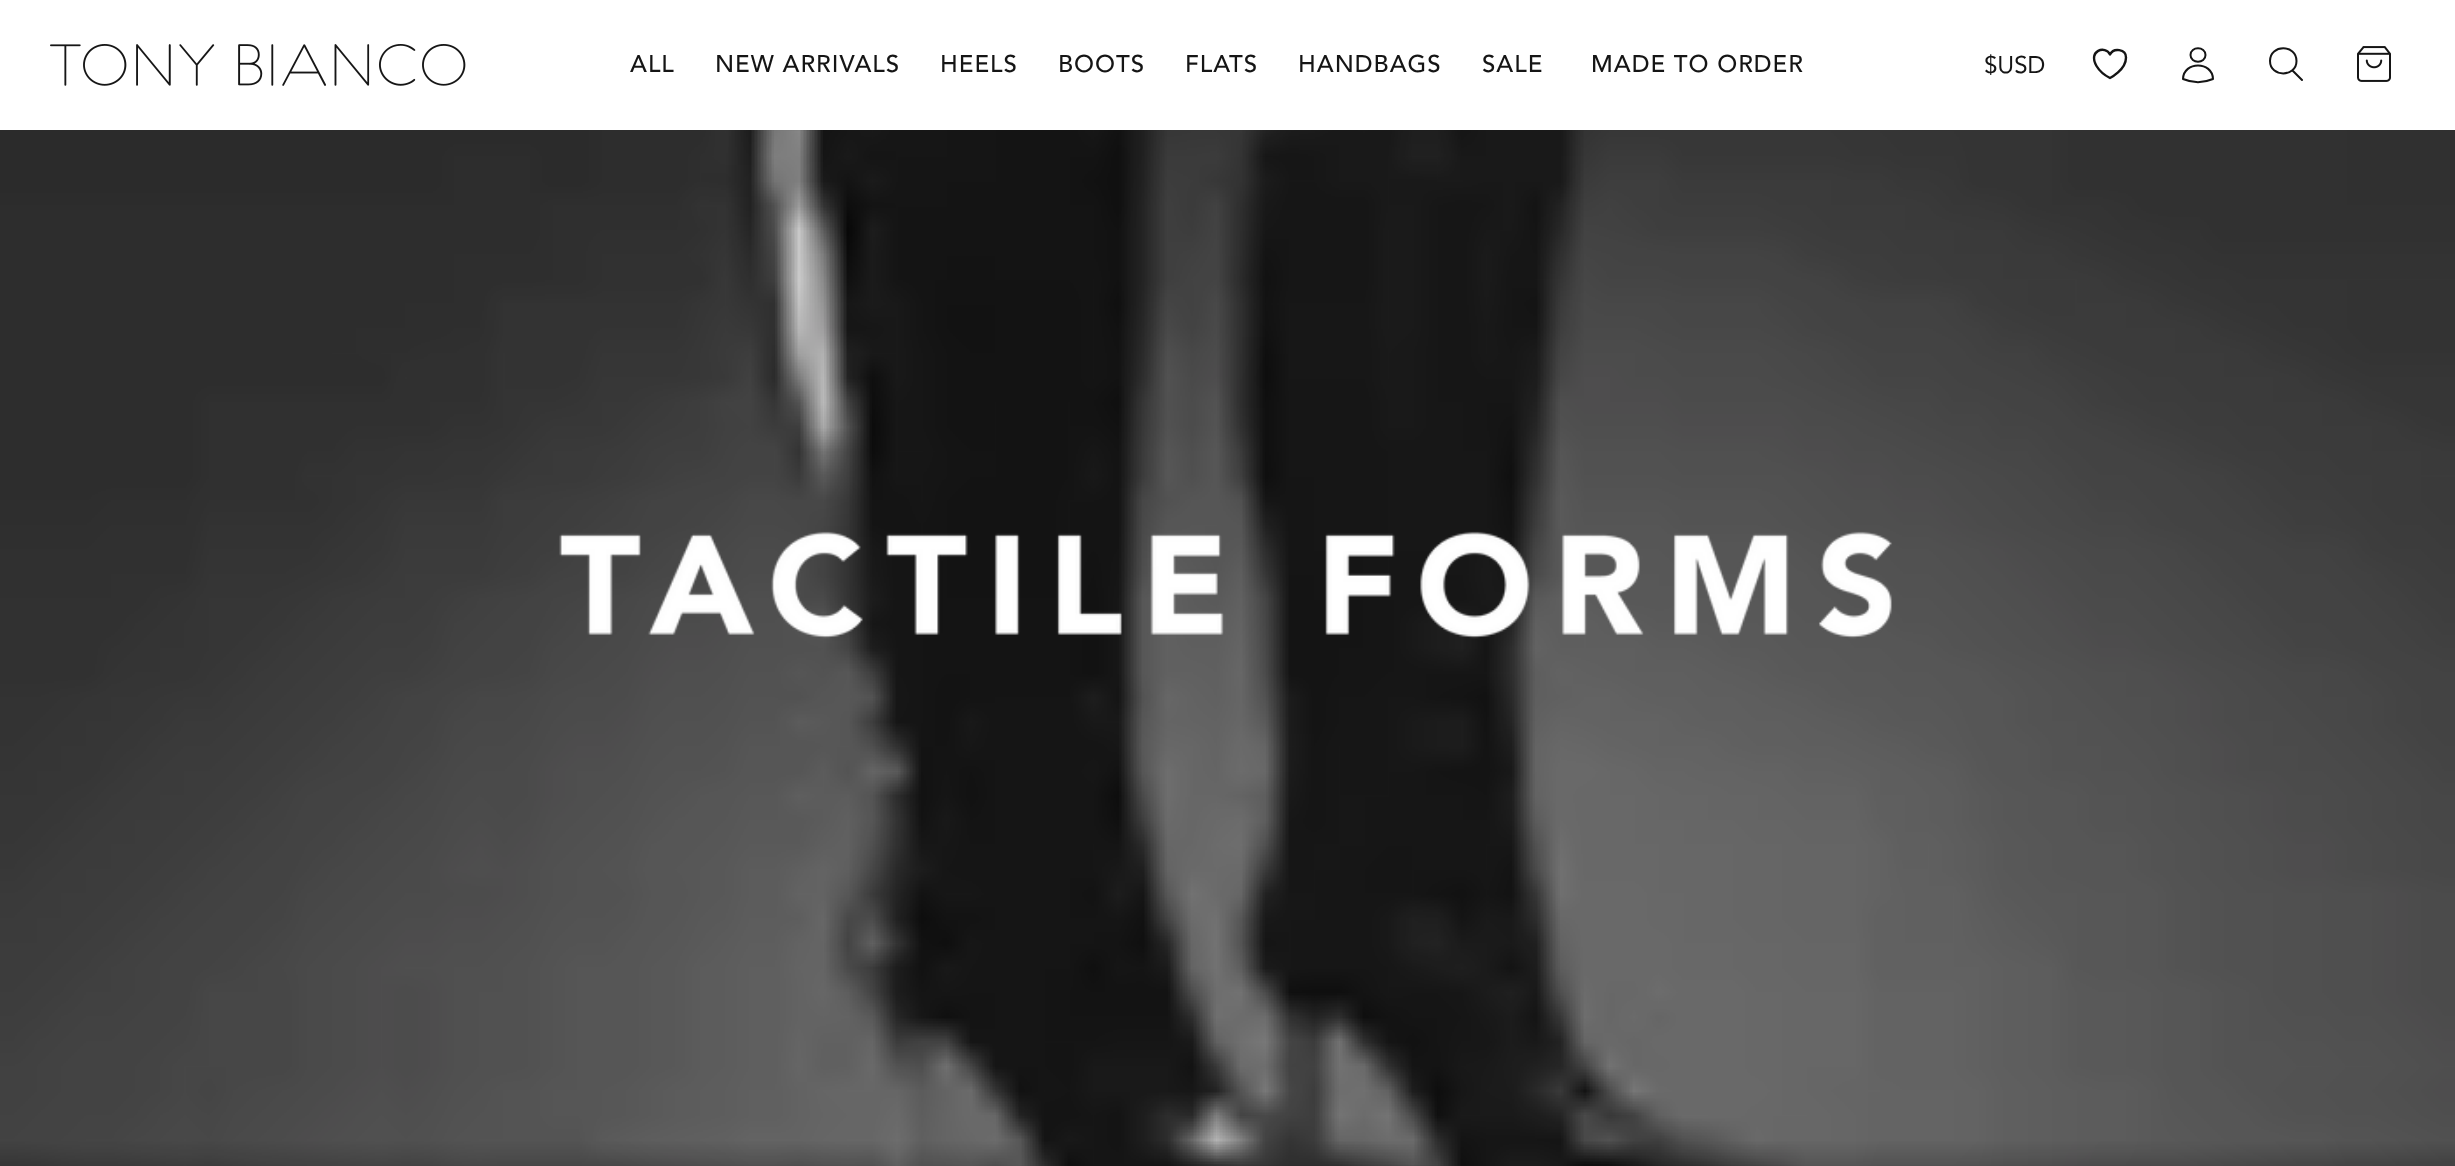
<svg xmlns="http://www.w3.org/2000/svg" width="2455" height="1166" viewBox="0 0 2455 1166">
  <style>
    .t1 { font: 500 24px Avenir; letter-spacing: 1px; fill: #151515; }
    .t2 { font: 24px Avenir; fill: #151515; }
  </style>
  <rect width="100%" height="100%" fill="#fff"/>
  <image x="50" y="44" width="416" height="42" href="images/1.png"/>
  <text x="630" y="72" class="t1">ALL</text>
  <text x="715" y="72" class="t1">NEW ARRIVALS</text>
  <text x="940" y="72" class="t1">HEELS</text>
  <text x="1058" y="72" class="t1">BOOTS</text>
  <text x="1185" y="72" class="t1">FLATS</text>
  <text x="1298" y="72" class="t1">HANDBAGS</text>
  <text x="1482" y="72" class="t1">SALE</text>
  <text x="1591" y="72" class="t1">MADE TO ORDER</text>
  <text x="1984" y="73" class="t2">$USD</text>
  <path d="M2126 57.5C2126 49 2113.5 47.5 2110 54.5C2105.5 45 2087.5 50.5 2096.5 66C2099.5 71 2105 75.5 2110 78C2110 78 2126 70 2126 57.5Z" fill="none" stroke="#151515" stroke-width="2.4" stroke-linecap="round" stroke-linejoin="round"/>
  <path d="M2205.5 55C2205.5 64 2190.5 64 2190.5 55C2190.5 46 2205.5 46 2205.5 55ZM2183 79C2183.5 61 2212.5 61 2213 79C2203.5 83 2192.5 83 2183 79Z" fill="none" stroke="#151515" stroke-width="2" stroke-linecap="round" stroke-linejoin="round"/>
  <path d="M2293 71L2302 80M2296.5 61C2296.5 77.5 2270 77.5 2270 61C2270 44 2296.5 44 2296.5 61Z" fill="none" stroke="#151515" stroke-width="2" stroke-linecap="round" stroke-linejoin="round"/>
  <image x="2357" y="46" width="34" height="36" href="images/2.png"/>
  <image x="0" y="130" width="2455" height="1036" href="images/3.png"/>
  <image x="559" y="531" width="1333" height="108" href="images/4.png"/>
</svg>
